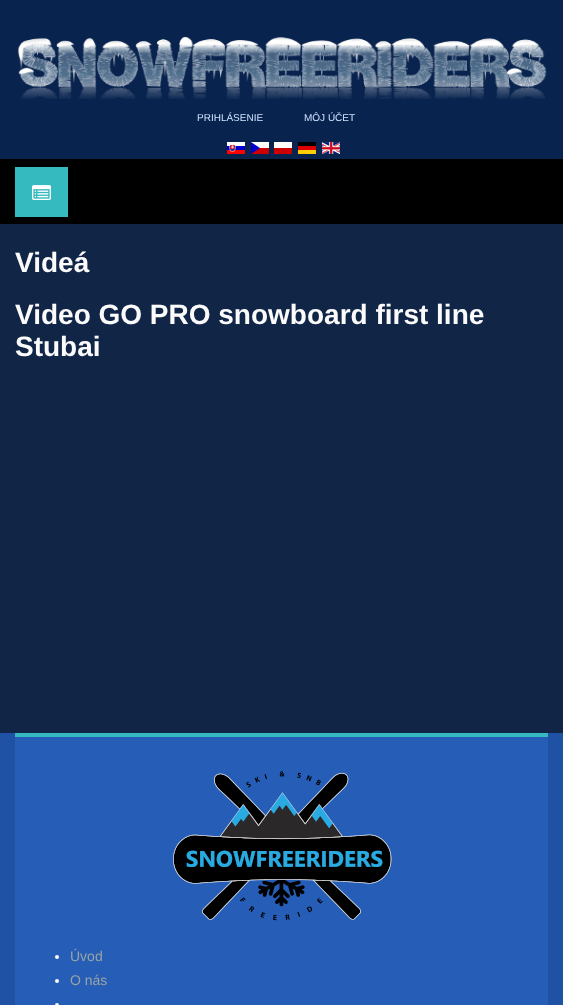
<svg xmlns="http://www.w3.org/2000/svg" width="563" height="1005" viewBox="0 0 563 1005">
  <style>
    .t1 { font: 10px Liberation Sans; fill: #d0e2ff; }
    .t2 { font: bold 28px Liberation Sans; fill: #fbfbfb; }
    .t3 { font: 14px Liberation Sans; fill: #99a4a5; }
  </style>
  <rect width="100%" height="100%" fill="#112547"/>
  <rect x="0" y="0" width="563" height="159" fill="#08234e"/>
  <image x="17" y="36" width="530" height="63" href="images/1.png"/>
  <text x="197" y="121" class="t1">PRIHLÁSENIE</text>
  <text x="304" y="121" class="t1">MÔJ ÚČET</text>
  <image x="227" y="142" width="18" height="12" href="images/2.png"/>
  <image x="251" y="142" width="18" height="12" href="images/3.png"/>
  <image x="274" y="142" width="18" height="12" href="images/4.png"/>
  <image x="298" y="142" width="18" height="12" href="images/5.png"/>
  <image x="322" y="142" width="18" height="12" href="images/6.png"/>
  <rect x="0" y="159" width="563" height="65" fill="#000"/>
  <rect x="15" y="167" width="53" height="50" fill="#35bbbf"/>
  <image x="32" y="185" width="19" height="15" href="images/7.png"/>
  <text x="15" y="272" class="t2">Videá</text>
  <text x="15" y="324" class="t2">Video GO PRO snowboard first line</text>
  <text x="15" y="356" class="t2">Stubai</text>
  <rect x="0" y="733" width="563" height="272" fill="#1f52a5"/>
  <rect x="15" y="737" width="533" height="268" fill="#265db7"/>
  <rect x="15" y="733" width="533" height="4" fill="#35bbbf"/>
  <image x="173" y="771" width="219" height="150" href="images/8.png"/>
  <circle cx="57" cy="957" r="2" fill="#fbfbfb"/>
  <text x="70" y="961" class="t3">Úvod</text>
  <circle cx="57" cy="981" r="2" fill="#fbfbfb"/>
  <text x="70" y="985" class="t3">O nás</text>
  <circle cx="57" cy="1005" r="2" fill="#fbfbfb"/>
</svg>
